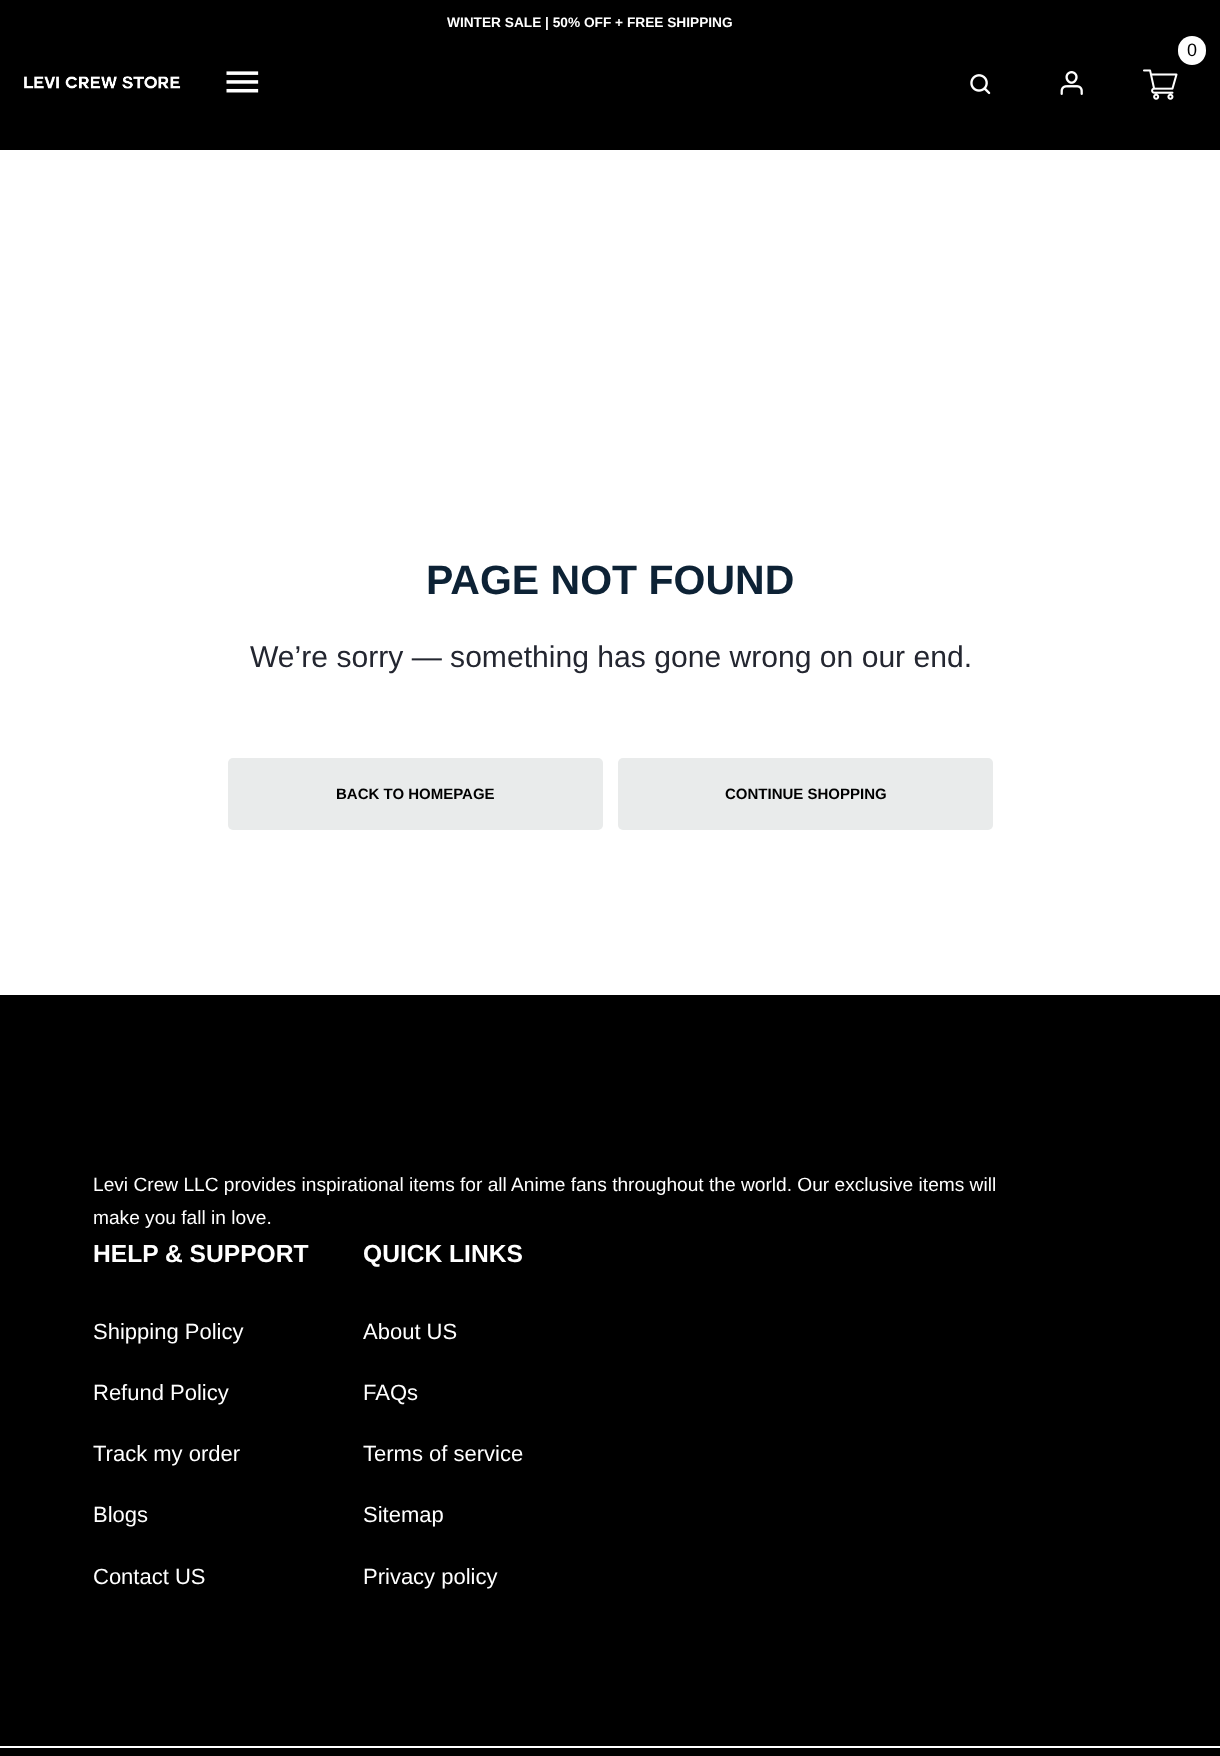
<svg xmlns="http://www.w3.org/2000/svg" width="1220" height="1756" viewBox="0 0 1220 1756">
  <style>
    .t1 { font: bold 13.7px Liberation Sans; fill: #fff; }
    .t2 { font: 18px Liberation Sans; fill: #000; }
    .t3 { font: bold 41px Liberation Sans; fill: #0d2235; }
    .t4 { font: 30.1px Liberation Sans; fill: #232630; }
    .t5 { font: bold 15px Liberation Sans; fill: #000; }
    .t6 { font: 19.15px Liberation Sans; fill: #fff; }
    .t7 { font: bold 24.6px Liberation Sans; fill: #fff; }
    .t8 { font: 22px Liberation Sans; fill: #fff; }
  </style>
  <rect width="100%" height="100%" fill="#fff"/>
  <rect x="0" y="0" width="1220" height="150" fill="#000"/>
  <text x="447" y="27" class="t1">WINTER SALE | 50% OFF + FREE SHIPPING</text>
  <rect x="1178" y="36" width="28" height="29" rx="14" fill="#fff"/>
  <text x="1187" y="56" class="t2">0</text>
  <image x="1143" y="69" width="35" height="31" href="images/1.png"/>
  <image x="970" y="74" width="21" height="21" href="images/2.png"/>
  <image x="1060" y="71" width="23" height="24" href="images/3.png"/>
  <image x="24" y="76" width="157" height="13" href="images/4.png"/>
  <image x="226" y="71" width="33" height="22" href="images/5.png"/>
  <text x="426" y="594" class="t3">PAGE NOT FOUND</text>
  <text x="250" y="667" class="t4">We’re sorry — something has gone wrong on our end.</text>
  <rect x="228" y="758" width="375" height="72" rx="5" fill="#e9ebeb"/>
  <text x="336" y="799" class="t5">BACK TO HOMEPAGE</text>
  <rect x="618" y="758" width="375" height="72" rx="5" fill="#e9ebeb"/>
  <text x="725" y="799" class="t5">CONTINUE SHOPPING</text>
  <rect x="0" y="995" width="1220" height="761" fill="#000"/>
  <text x="93" y="1191" class="t6">Levi Crew LLC provides inspirational items for all Anime fans throughout the world. Our exclusive items will</text>
  <text x="93" y="1224" class="t6">make you fall in love.</text>
  <text x="93" y="1262" class="t7">HELP &amp; SUPPORT</text>
  <text x="93" y="1339" class="t8">Shipping Policy</text>
  <text x="93" y="1400" class="t8">Refund Policy</text>
  <text x="93" y="1461" class="t8">Track my order</text>
  <text x="93" y="1522" class="t8">Blogs</text>
  <text x="93" y="1584" class="t8">Contact US</text>
  <text x="363" y="1262" class="t7">QUICK LINKS</text>
  <text x="363" y="1339" class="t8">About US</text>
  <text x="363" y="1400" class="t8">FAQs</text>
  <text x="363" y="1461" class="t8">Terms of service</text>
  <text x="363" y="1522" class="t8">Sitemap</text>
  <text x="363" y="1584" class="t8">Privacy policy</text>
  <rect x="0" y="1746" width="1220" height="2" fill="#fff"/>
</svg>
